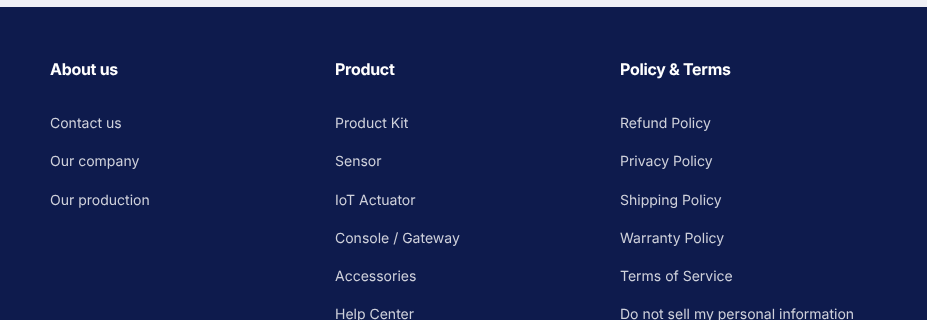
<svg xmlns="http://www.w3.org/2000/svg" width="927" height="320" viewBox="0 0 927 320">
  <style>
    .t1 { font: bold 16px Inter; letter-spacing: -0.25px; fill: #fff; }
    .t2 { font: 14px Inter; fill: #cfd1db; }
  </style>
  <rect width="100%" height="100%" fill="#eff0f5"/>
  <rect x="0" y="7" width="927" height="313" fill="#0e1b4d"/>
  <text x="50" y="75" class="t1">About us</text>
  <text x="50" y="128" class="t2">Contact us</text>
  <text x="50" y="166" class="t2">Our company</text>
  <text x="50" y="205" class="t2">Our production</text>
  <text x="335" y="75" class="t1">Product</text>
  <text x="335" y="128" class="t2">Product Kit</text>
  <text x="335" y="166" class="t2">Sensor</text>
  <text x="335" y="205" class="t2">IoT Actuator</text>
  <text x="335" y="243" class="t2">Console / Gateway</text>
  <text x="335" y="281" class="t2">Accessories</text>
  <text x="335" y="319" class="t2">Help Center</text>
  <text x="620" y="75" class="t1">Policy &amp; Terms</text>
  <text x="620" y="128" class="t2">Refund Policy</text>
  <text x="620" y="166" class="t2">Privacy Policy</text>
  <text x="620" y="205" class="t2">Shipping Policy</text>
  <text x="620" y="243" class="t2">Warranty Policy</text>
  <text x="620" y="281" class="t2">Terms of Service</text>
  <text x="620" y="319" class="t2">Do not sell my personal information</text>
</svg>
